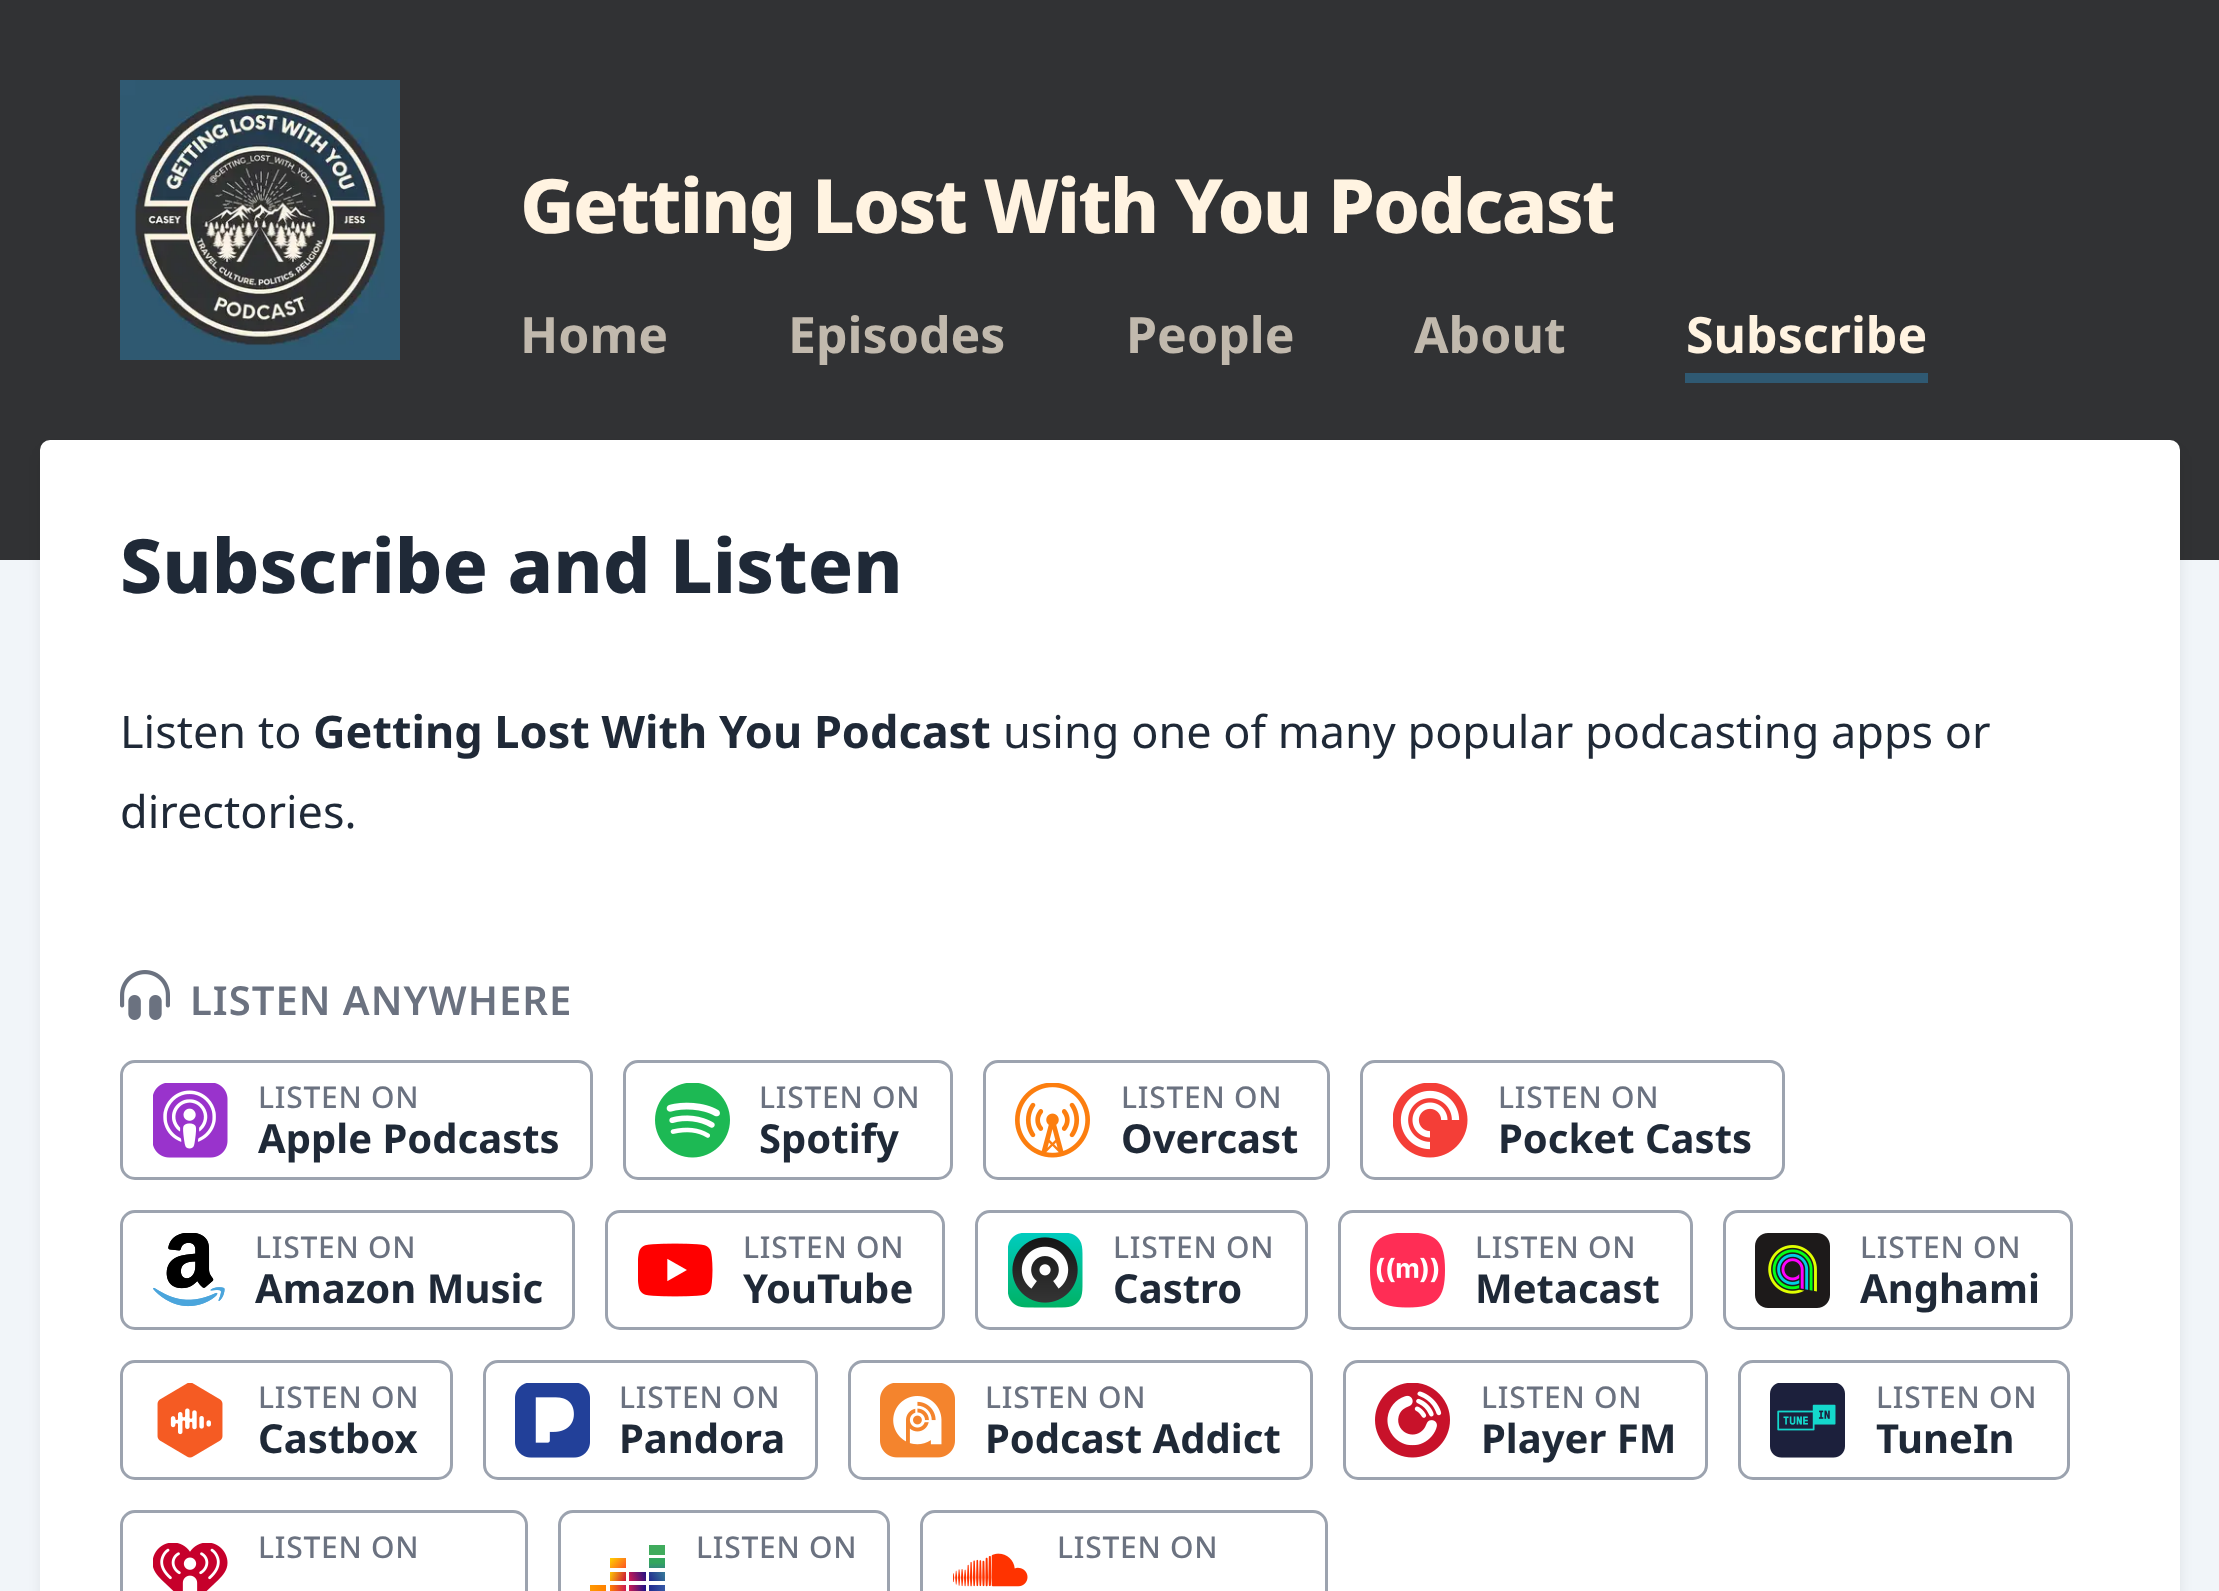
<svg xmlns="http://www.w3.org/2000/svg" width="2219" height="1591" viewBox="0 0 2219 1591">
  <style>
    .t1 { font: 800 75px Noto Sans; letter-spacing: -1.9px; fill: #fff3e1; }
    .t2 { font: bold 50px Noto Sans; fill: #c1b9ad; }
    .t3 { font: bold 50px Noto Sans; fill: #fff3e1; }
    .t4 { font: 800 75px Noto Sans; fill: #1f2937; }
    .t5 { font: 45px Noto Sans; fill: #1f2937; }
    .t6 { font: bold 45px Noto Sans; fill: #1f2937; }
    .t7 { font: 600 40px Noto Sans; letter-spacing: 1px; fill: #6b7280; }
    .t8 { font: 500 30px Noto Sans; letter-spacing: 0.75px; fill: #6b7280; }
    .t9 { font: bold 40px Noto Sans; fill: #1f2937; }
  </style>
  <defs>
    <linearGradient id="g1" gradientUnits="userSpaceOnUse" x1="657" y1="1568" x2="657" y2="1558"><stop offset="0" stop-color="#358c7b"/><stop offset="0.53" stop-color="#33a65e"/></linearGradient>
    <linearGradient id="g2" gradientUnits="userSpaceOnUse" x1="649" y1="1580" x2="665" y2="1572"><stop offset="0" stop-color="#222b90"/><stop offset="1" stop-color="#367b99"/></linearGradient>
    <linearGradient id="g3" gradientUnits="userSpaceOnUse" x1="590" y1="1589" x2="606" y2="1589"><stop offset="0" stop-color="#f90"/><stop offset="1" stop-color="#ff8000"/></linearGradient>
    <linearGradient id="g4" gradientUnits="userSpaceOnUse" x1="610" y1="1589" x2="626" y2="1589"><stop offset="0" stop-color="#ff8000"/><stop offset="1" stop-color="#cc1953"/></linearGradient>
    <linearGradient id="g5" gradientUnits="userSpaceOnUse" x1="629" y1="1589" x2="645" y2="1589"><stop offset="0" stop-color="#cc1953"/><stop offset="1" stop-color="#241284"/></linearGradient>
    <linearGradient id="g6" gradientUnits="userSpaceOnUse" x1="649" y1="1589" x2="665" y2="1589"><stop offset="0" stop-color="#222b90"/><stop offset="1" stop-color="#3559a6"/></linearGradient>
    <linearGradient id="g7" gradientUnits="userSpaceOnUse" x1="629" y1="1579" x2="646" y2="1573"><stop offset="0" stop-color="#cc1953"/><stop offset="1" stop-color="#241284"/></linearGradient>
    <linearGradient id="g8" gradientUnits="userSpaceOnUse" x1="609" y1="1573" x2="626" y2="1579"><stop offset="0" stop-color="#fc0"/><stop offset="1" stop-color="#ce1938"/></linearGradient>
    <linearGradient id="g9" gradientUnits="userSpaceOnUse" x1="611" y1="1557" x2="624" y2="1569"><stop offset="0" stop-color="#ffd100"/><stop offset="1" stop-color="#fd5a22"/></linearGradient>
  </defs>
  <rect width="100%" height="100%" fill="#f1f5f9"/>
  <rect x="0" y="0" width="2219" height="560" fill="#313234"/>
  <image x="120" y="80" width="280" height="280" href="images/1.png"/>
  <text x="520" y="233" class="t1">Getting Lost With You Podcast</text>
  <text x="520" y="353" class="t2">Home</text>
  <text x="788" y="353" class="t2">Episodes</text>
  <text x="1126" y="353" class="t2">People</text>
  <text x="1414" y="353" class="t2">About</text>
  <text x="1686" y="353" class="t3">Subscribe</text>
  <rect x="1685" y="373" width="243" height="10" fill="#2f5972"/>
  <rect x="43" y="453" width="2135" height="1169" rx="8" fill="#0000001a" filter="blur(7.5px)"/>
  <rect x="40" y="440" width="2140" height="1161" rx="10" fill="#fff"/>
  <text x="120" y="593" class="t4">Subscribe and Listen</text>
  <text x="120" y="748" class="t5">Listen to</text>
  <text x="313" y="748" class="t6">Getting Lost With You Podcast</text>
  <text x="1003" y="748" class="t5">using one of many popular podcasting apps or</text>
  <text x="120" y="828" class="t5">directories.</text>
  <image x="120" y="970" width="50" height="50" href="images/2.png"/>
  <text x="190" y="1015" class="t7">LISTEN ANYWHERE</text>
  <rect x="121.5" y="1061.5" width="470" height="117" rx="13.5" fill="none" stroke="#9ca3af" stroke-width="3"/>
  <image x="153" y="1083" width="75" height="75" href="images/3.png"/>
  <text x="258" y="1108" class="t8">LISTEN ON</text>
  <text x="258" y="1153" class="t9">Apple Podcasts</text>
  <rect x="624.5" y="1061.5" width="327" height="117" rx="13.5" fill="none" stroke="#9ca3af" stroke-width="3"/>
  <image x="655" y="1083" width="75" height="75" href="images/4.png"/>
  <text x="759" y="1108" class="t8">LISTEN ON</text>
  <text x="759" y="1153" class="t9">Spotify</text>
  <rect x="984.5" y="1061.5" width="344" height="117" rx="13.5" fill="none" stroke="#9ca3af" stroke-width="3"/>
  <image x="1015" y="1083" width="75" height="75" href="images/5.png"/>
  <text x="1121" y="1108" class="t8">LISTEN ON</text>
  <text x="1121" y="1153" class="t9">Overcast</text>
  <rect x="1361.5" y="1061.5" width="422" height="117" rx="13.5" fill="none" stroke="#9ca3af" stroke-width="3"/>
  <image x="1393" y="1083" width="75" height="75" href="images/6.png"/>
  <text x="1498" y="1108" class="t8">LISTEN ON</text>
  <text x="1498" y="1153" class="t9">Pocket Casts</text>
  <rect x="121.5" y="1211.5" width="452" height="117" rx="13.5" fill="none" stroke="#9ca3af" stroke-width="3"/>
  <image x="153" y="1233" width="72" height="74" href="images/7.png"/>
  <text x="255" y="1258" class="t8">LISTEN ON</text>
  <text x="255" y="1303" class="t9">Amazon Music</text>
  <rect x="606.5" y="1211.5" width="337" height="117" rx="13.5" fill="none" stroke="#9ca3af" stroke-width="3"/>
  <image x="638" y="1243" width="75" height="54" href="images/8.png"/>
  <text x="743" y="1258" class="t8">LISTEN ON</text>
  <text x="743" y="1303" class="t9">YouTube</text>
  <rect x="976.5" y="1211.5" width="330" height="117" rx="13.5" fill="none" stroke="#9ca3af" stroke-width="3"/>
  <image x="1008" y="1233" width="75" height="75" href="images/9.png"/>
  <text x="1113" y="1258" class="t8">LISTEN ON</text>
  <text x="1113" y="1303" class="t9">Castro</text>
  <rect x="1339.5" y="1211.5" width="352" height="117" rx="13.5" fill="none" stroke="#9ca3af" stroke-width="3"/>
  <image x="1370" y="1233" width="75" height="75" href="images/10.png"/>
  <text x="1475" y="1258" class="t8">LISTEN ON</text>
  <text x="1475" y="1303" class="t9">Metacast</text>
  <rect x="1724.5" y="1211.5" width="347" height="117" rx="13.5" fill="none" stroke="#9ca3af" stroke-width="3"/>
  <image x="1755" y="1233" width="75" height="75" href="images/11.png"/>
  <text x="1860" y="1258" class="t8">LISTEN ON</text>
  <text x="1860" y="1303" class="t9">Anghami</text>
  <rect x="121.5" y="1361.5" width="330" height="117" rx="13.5" fill="none" stroke="#9ca3af" stroke-width="3"/>
  <image x="157" y="1383" width="66" height="75" href="images/12.png"/>
  <text x="258" y="1408" class="t8">LISTEN ON</text>
  <text x="258" y="1453" class="t9">Castbox</text>
  <rect x="484.5" y="1361.5" width="332" height="117" rx="13.5" fill="none" stroke="#9ca3af" stroke-width="3"/>
  <image x="515" y="1383" width="75" height="75" href="images/13.png"/>
  <text x="619" y="1408" class="t8">LISTEN ON</text>
  <text x="619" y="1453" class="t9">Pandora</text>
  <rect x="849.5" y="1361.5" width="462" height="117" rx="13.5" fill="none" stroke="#9ca3af" stroke-width="3"/>
  <image x="880" y="1383" width="75" height="75" href="images/14.png"/>
  <text x="985" y="1408" class="t8">LISTEN ON</text>
  <text x="985" y="1453" class="t9">Podcast Addict</text>
  <rect x="1344.5" y="1361.5" width="362" height="117" rx="13.5" fill="none" stroke="#9ca3af" stroke-width="3"/>
  <image x="1375" y="1383" width="75" height="75" href="images/15.png"/>
  <text x="1481" y="1408" class="t8">LISTEN ON</text>
  <text x="1481" y="1453" class="t9">Player FM</text>
  <rect x="1739.5" y="1361.5" width="329" height="117" rx="13.5" fill="none" stroke="#9ca3af" stroke-width="3"/>
  <image x="1770" y="1383" width="75" height="75" href="images/16.png"/>
  <text x="1876" y="1408" class="t8">LISTEN ON</text>
  <text x="1876" y="1453" class="t9">TuneIn</text>
  <rect x="121.5" y="1511.5" width="405" height="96" rx="13.5" fill="none" stroke="#9ca3af" stroke-width="3"/>
  <image x="153" y="1543" width="75" height="48" href="images/17.png"/>
  <text x="258" y="1558" class="t8">LISTEN ON</text>
  <rect x="559.5" y="1511.5" width="329" height="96" rx="13.5" fill="none" stroke="#9ca3af" stroke-width="3"/>
  <rect x="649" y="1545" width="16" height="10" fill="#40ab5d"/>
  <rect x="649" y="1558" width="16" height="10" fill="url(#g1)"/>
  <rect x="649" y="1572" width="16" height="9" fill="url(#g2)"/>
  <rect x="590" y="1585" width="16" height="6" fill="url(#g3)"/>
  <rect x="610" y="1585" width="16" height="6" fill="url(#g4)"/>
  <rect x="629" y="1585" width="17" height="6" fill="url(#g5)"/>
  <rect x="649" y="1585" width="16" height="6" fill="url(#g6)"/>
  <rect x="629" y="1572" width="17" height="9" fill="url(#g7)"/>
  <rect x="610" y="1572" width="16" height="9" fill="url(#g8)"/>
  <rect x="610" y="1558" width="16" height="10" fill="url(#g9)"/>
  <text x="696" y="1558" class="t8">LISTEN ON</text>
  <rect x="921.5" y="1511.5" width="405" height="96" rx="13.5" fill="none" stroke="#9ca3af" stroke-width="3"/>
  <text x="1057" y="1558" class="t8">LISTEN ON</text>
  <image x="953" y="1553" width="75" height="34" href="images/18.png"/>
</svg>
